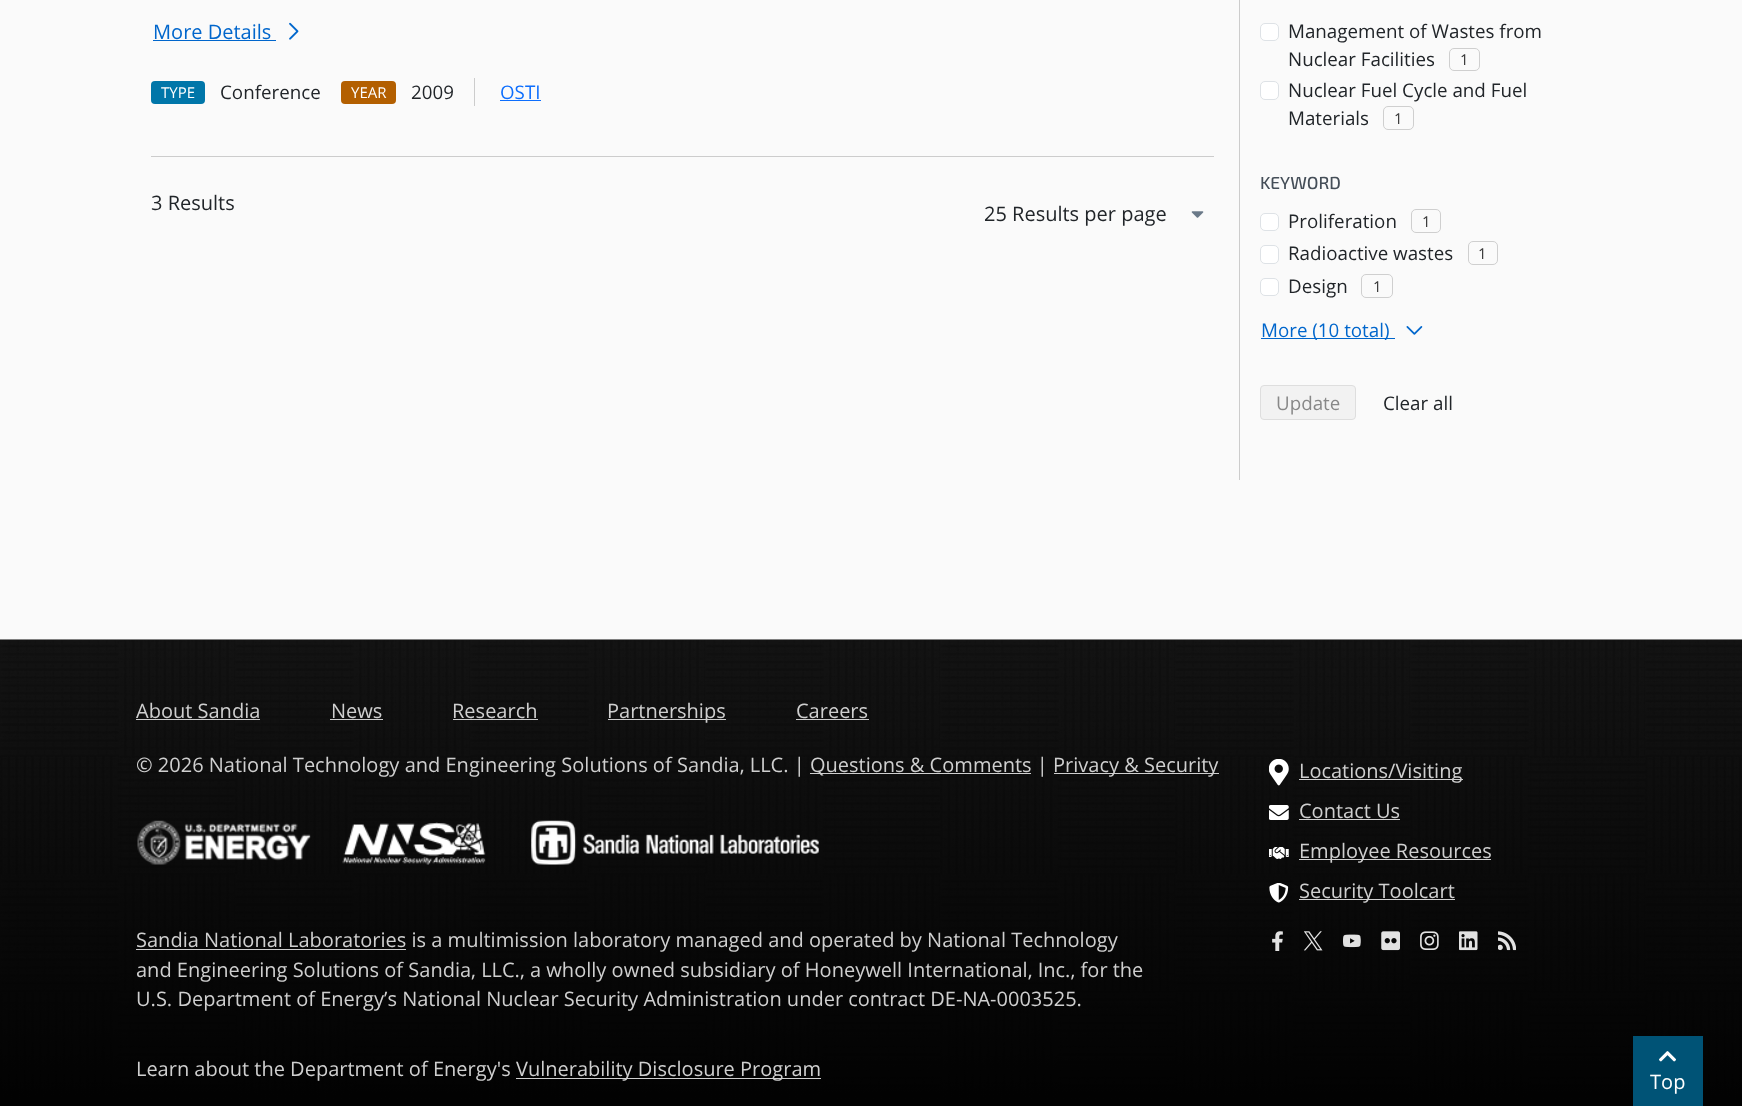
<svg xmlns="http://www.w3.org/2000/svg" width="1742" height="1106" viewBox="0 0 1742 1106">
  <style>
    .t1 { font: 20px Open Sans; fill: #06c; }
    .t2 { font: 15px Open Sans; fill: #fff; }
    .t3 { font: 18.75px Open Sans; fill: #212529; }
    .t4 { font: 18.75px Open Sans; fill: #0d6efd; }
    .t5 { font: 20px Open Sans; fill: #212529; }
    .t6 { font: 15px Open Sans; fill: #363636; }
    .t7 { font: 500 17.5px 'Exo 2'; fill: #454e58; }
    .t8 { font: 18.75px Open Sans; fill: #06c; }
    .t9 { font: 18.75px Open Sans; fill: #888; }
    .t10 { font: 20px Open Sans; fill: #cfcfcf; }
    .t11 { font: 20px Open Sans; fill: #fff; }
  </style>
  <rect width="100%" height="100%" fill="#fafafa"/>
  <rect x="151" y="156" width="1063" height="1" fill="#ccc"/>
  <text x="153" y="39" class="t1">More Details</text>
  <rect x="153" y="40" width="123" height="1" fill="#06c"/>
  <image x="289" y="22" width="10" height="18" href="images/1.png"/>
  <rect x="151" y="81" width="54" height="23" rx="4" fill="#0076a9"/>
  <text x="161" y="98" class="t2">TYPE</text>
  <text x="220" y="99" class="t3">Conference</text>
  <rect x="341" y="81" width="55" height="23" rx="4" fill="#b35f00"/>
  <text x="351" y="98" class="t2">YEAR</text>
  <text x="411" y="99" class="t3">2009</text>
  <rect x="474" y="78" width="1" height="28" fill="#ccc"/>
  <text x="500" y="99" class="t4">OSTI</text>
  <rect x="500" y="100" width="41" height="1" fill="#0d6efd"/>
  <text x="151" y="210" class="t5">3 Results</text>
  <image x="1191" y="211" width="13" height="7" href="images/2.png"/>
  <text x="984" y="221" class="t5">25 Results per page</text>
  <rect x="1239" y="0" width="1" height="480" fill="#ccc"/>
  <rect x="1260.5" y="23.5" width="18" height="17" rx="4.5" fill="#fff" stroke="#dee2e6"/>
  <text x="1288" y="38" class="t3">Management of Wastes from</text>
  <text x="1288" y="66" class="t3">Nuclear Facilities</text>
  <text x="1460" y="65" class="t6">1</text>
  <rect x="1449.5" y="48.5" width="30" height="22" rx="4.5" fill="none" stroke="#cfcfcf"/>
  <rect x="1260.5" y="81.5" width="18" height="18" rx="4.5" fill="#fff" stroke="#dee2e6"/>
  <text x="1288" y="97" class="t3">Nuclear Fuel Cycle and Fuel</text>
  <text x="1288" y="125" class="t3">Materials</text>
  <text x="1394" y="124" class="t6">1</text>
  <rect x="1383.5" y="106.5" width="30" height="23" rx="4.5" fill="none" stroke="#cfcfcf"/>
  <text x="1260" y="189" class="t7">KEYWORD</text>
  <rect x="1260.5" y="213.5" width="18" height="17" rx="4.5" fill="#fff" stroke="#dee2e6"/>
  <text x="1288" y="228" class="t3">Proliferation</text>
  <text x="1422" y="227" class="t6">1</text>
  <rect x="1411.5" y="209.5" width="29" height="23" rx="4.5" fill="none" stroke="#cfcfcf"/>
  <rect x="1260.5" y="245.5" width="18" height="18" rx="4.5" fill="#fff" stroke="#dee2e6"/>
  <text x="1288" y="260" class="t3">Radioactive wastes</text>
  <text x="1478" y="259" class="t6">1</text>
  <rect x="1468.5" y="241.5" width="29" height="23" rx="4.5" fill="none" stroke="#cfcfcf"/>
  <rect x="1260.5" y="278.5" width="18" height="17" rx="4.5" fill="#fff" stroke="#dee2e6"/>
  <text x="1288" y="293" class="t3">Design</text>
  <text x="1373" y="292" class="t6">1</text>
  <rect x="1361.5" y="274.5" width="31" height="23" rx="4.5" fill="none" stroke="#cfcfcf"/>
  <rect x="1261" y="338" width="134" height="1" fill="#06c"/>
  <text x="1261" y="337" class="t8">More (10 total)</text>
  <image x="1406" y="326" width="17" height="9" href="images/3.png"/>
  <rect x="1260.5" y="385.5" width="95" height="34" rx="3.5" fill="#f2f2f2" stroke="#dedede"/>
  <text x="1276" y="410" class="t9">Update</text>
  <text x="1383" y="410" class="t3">Clear all</text>
  <image x="0" y="639" width="1742" height="467" href="images/4.png"/>
  <text x="136" y="718" class="t10">About Sandia</text>
  <rect x="136" y="719" width="124" height="1" fill="#ccc"/>
  <text x="331" y="718" class="t10">News</text>
  <rect x="330" y="719" width="53" height="1" fill="#ccc"/>
  <text x="452" y="718" class="t10">Research</text>
  <rect x="453" y="719" width="85" height="1" fill="#ccc"/>
  <rect x="608" y="719" width="118" height="1" fill="#ccc"/>
  <text x="607" y="718" class="t10">Partnerships</text>
  <text x="796" y="718" class="t10">Careers</text>
  <rect x="796" y="719" width="73" height="1" fill="#ccc"/>
  <text x="136" y="772" class="t10">© 2026 National Technology and Engineering Solutions of Sandia, LLC. |</text>
  <rect x="810" y="773" width="221" height="1" fill="#cfcfcf"/>
  <text x="810" y="772" class="t10">Questions &amp; Comments |</text>
  <rect x="1054" y="773" width="165" height="1" fill="#cfcfcf"/>
  <text x="1053" y="772" class="t10">Privacy &amp; Security</text>
  <image x="137" y="820" width="174" height="45" href="images/5.png"/>
  <image x="342" y="822" width="144" height="43" href="images/6.png"/>
  <image x="531" y="820" width="288" height="45" href="images/7.png"/>
  <rect x="136" y="949" width="270" height="1" fill="#cfcfcf"/>
  <text x="136" y="947" class="t10">Sandia National Laboratories is a multimission laboratory managed and operated by National Technology</text>
  <text x="136" y="977" class="t10">and Engineering Solutions of Sandia, LLC., a wholly owned subsidiary of Honeywell International, Inc., for the</text>
  <text x="136" y="1006" class="t10">U.S. Department of Energy’s National Nuclear Security Administration under contract DE-NA-0003525.</text>
  <image x="1269" y="759" width="20" height="27" href="images/8.png"/>
  <rect x="1299" y="779" width="164" height="1" fill="#cfcfcf"/>
  <text x="1299" y="778" class="t10">Locations/Visiting</text>
  <image x="1269" y="805" width="20" height="15" href="images/9.png"/>
  <text x="1299" y="818" class="t10">Contact Us</text>
  <rect x="1299" y="819" width="101" height="1" fill="#cfcfcf"/>
  <image x="1269" y="847" width="20" height="12" href="images/10.png"/>
  <rect x="1299" y="859" width="192" height="1" fill="#cfcfcf"/>
  <text x="1299" y="858" class="t10">Employee Resources</text>
  <image x="1269" y="883" width="20" height="20" href="images/11.png"/>
  <rect x="1299" y="899" width="156" height="1" fill="#cfcfcf"/>
  <text x="1299" y="898" class="t10">Security Toolcart</text>
  <image x="1272" y="931" width="11" height="20" href="images/12.png"/>
  <image x="1304" y="931" width="19" height="20" href="images/13.png"/>
  <image x="1343" y="934" width="18" height="14" href="images/14.png"/>
  <image x="1381" y="931" width="19" height="20" href="images/15.png"/>
  <image x="1420" y="931" width="19" height="19" href="images/16.png"/>
  <image x="1459" y="931" width="19" height="20" href="images/17.png"/>
  <image x="1498" y="931" width="18" height="20" href="images/18.png"/>
  <text x="136" y="1076" class="t10">Learn about the Department of Energy's</text>
  <rect x="516" y="1078" width="305" height="1" fill="#cfcfcf"/>
  <text x="516" y="1076" class="t10">Vulnerability Disclosure Program</text>
  <rect x="1633" y="1036" width="70" height="70" fill="#005376"/>
  <image x="1659" y="1051" width="17" height="11" href="images/19.png"/>
  <text x="1650" y="1089" class="t11">Top</text>
</svg>
